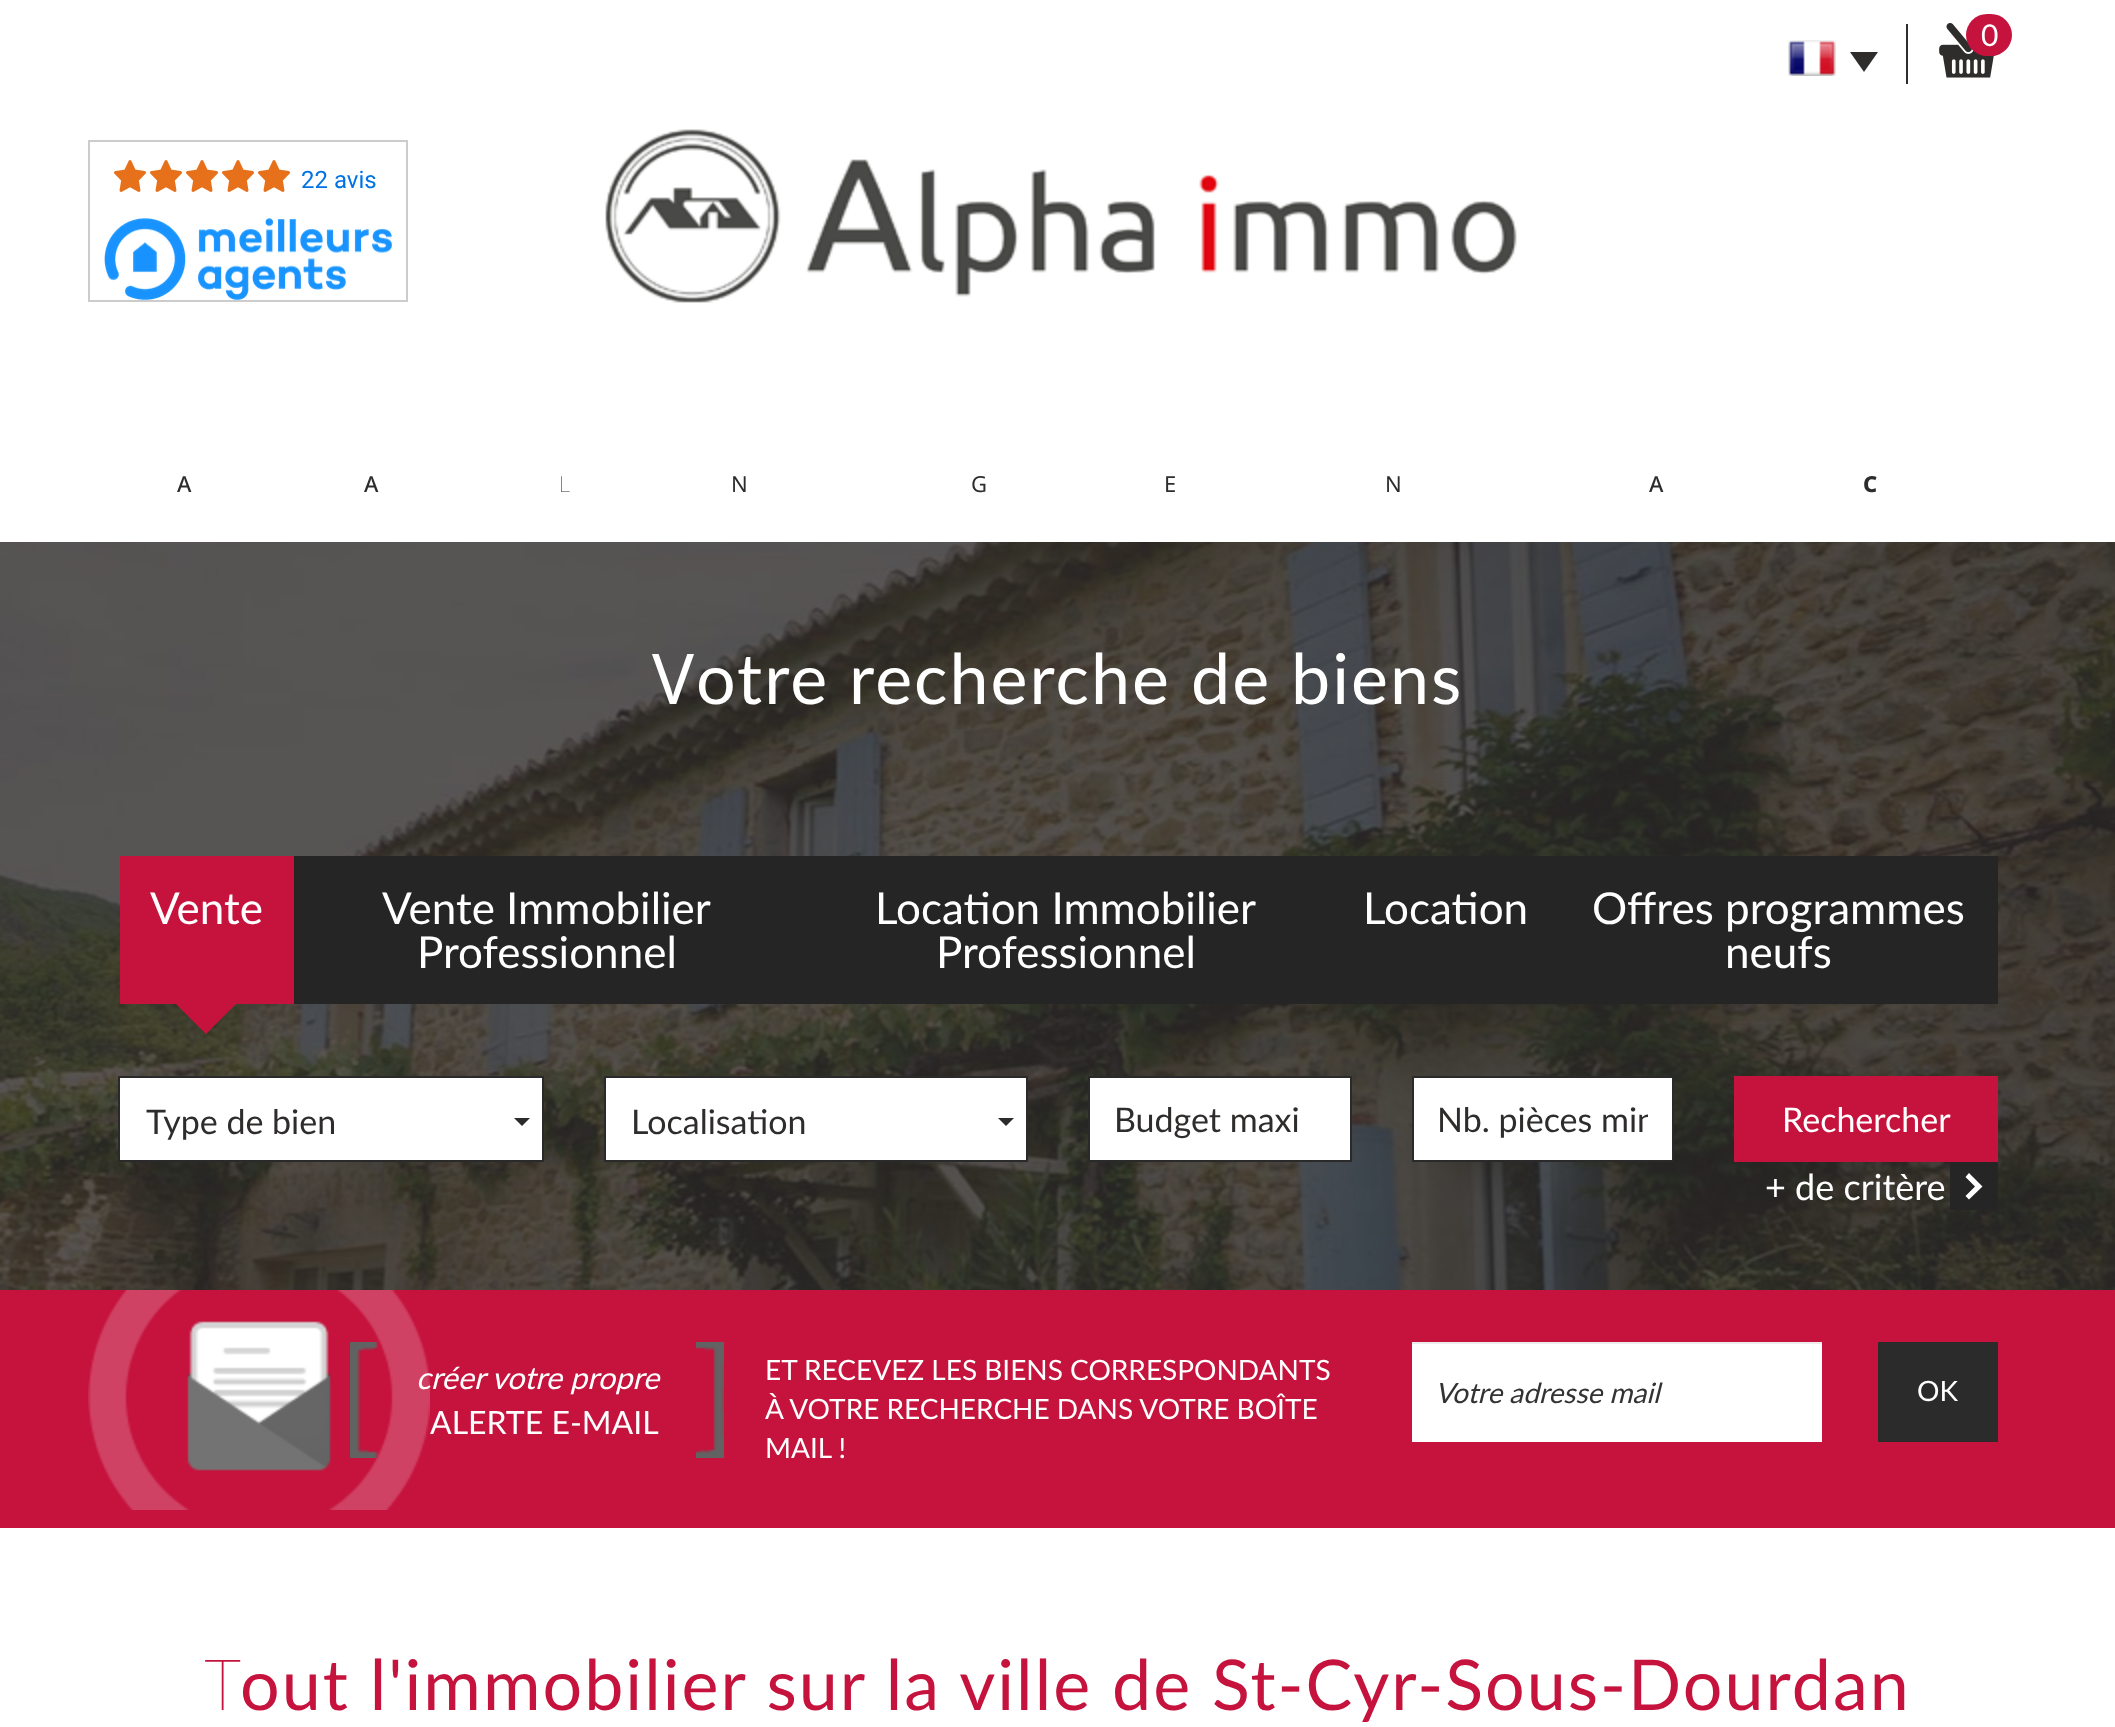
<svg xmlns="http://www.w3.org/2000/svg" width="2115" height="1727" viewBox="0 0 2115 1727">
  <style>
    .t1 { font: 30px Lato; fill: #fff; }
    .t2 { font: 24px Roboto; fill: #0074e4; }
    .t3 { font: 500 22px Noto Sans; fill: #2f2c2c; }
    .t4 { font: 100 22px Noto Sans; fill: #2f2c2c; }
    .t5 { font: 22px Noto Sans; fill: #2f2c2c; }
    .t6 { font: 800 22px Noto Sans; fill: #2f2c2c; }
    .t7 { font: 70px Noto Sans; letter-spacing: 2px; fill: #fff; }
    .t8 { font: 70px Lato; letter-spacing: 2px; fill: #fff; }
    .t9 { font: 44px Lato; fill: #fff; }
    .t10 { font: 34px Lato; fill: #2f2c2c; }
    .t11 { font: 34px Lato; fill: #fff; }
    .t12 { font: 36px Lato; fill: #fff; }
    .t13 { font: italic 30.75px Lato; fill: #fff; }
    .t14 { font: 32px Lato; fill: #fff; }
    .t15 { font: 28px Lato; fill: #fff; }
    .t16 { font: italic 28px Lato; fill: #333; }
    .t17 { font: 100 70px Noto Sans; letter-spacing: 2px; fill: #c5133d; }
    .t18 { font: 70px Lato; letter-spacing: 2px; fill: #c5133d; }
  </style>
  <defs>
    <clipPath id="clip1"><rect x="1438" y="1098" width="210" height="42"/></clipPath>
  </defs>
  <rect width="100%" height="100%" fill="#fff"/>
  <image x="0" y="542" width="2115" height="748" href="images/1.png"/>
  <image x="1788" y="40" width="48" height="36" href="images/2.png"/>
  <path d="M1850 52H1878L1864 72Z" fill="#2f2c2c"/>
  <rect x="1906" y="24" width="2" height="60" fill="#2f2c2c"/>
  <image x="1939" y="23" width="57" height="55" href="images/3.png"/>
  <rect x="1966" y="14" width="46" height="42" rx="21" fill="#c5133d"/>
  <text x="1981" y="46" class="t1">0</text>
  <rect x="89" y="141" width="318" height="160" fill="none" stroke="#ccc" stroke-width="2"/>
  <image x="114" y="160" width="32" height="32" href="images/4.png"/>
  <image x="150" y="160" width="32" height="32" href="images/4.png"/>
  <image x="186" y="160" width="32" height="32" href="images/4.png"/>
  <image x="222" y="160" width="32" height="32" href="images/4.png"/>
  <image x="258" y="160" width="32" height="32" href="images/4.png"/>
  <text x="301" y="188" class="t2">22 avis</text>
  <image x="104" y="218" width="288" height="82" href="images/5.png"/>
  <image x="605" y="129" width="912" height="174" href="images/6.png"/>
  <text x="177" y="492" class="t3">A</text>
  <text x="364" y="492" class="t3">A</text>
  <text x="559" y="492" class="t4">L</text>
  <text x="731" y="492" class="t5">N</text>
  <text x="971" y="492" class="t5">G</text>
  <text x="1164" y="492" class="t5">E</text>
  <text x="1385" y="492" class="t5">N</text>
  <text x="1649" y="492" class="t3">A</text>
  <text x="1863" y="492" class="t6">C</text>
  <rect x="0" y="542" width="2115" height="748" fill="#2f2c2ccc"/>
  <text x="652" y="704" class="t7">V</text>
  <text x="696" y="704" class="t8">otre recherche de biens</text>
  <rect x="120" y="856" width="174" height="148" fill="#c5133d"/>
  <text x="150" y="924" class="t9">Vente</text>
  <path d="M176 1004H236L206 1034Z" fill="#c5133d"/>
  <rect x="294" y="856" width="1704" height="148" fill="#252526"/>
  <text x="382" y="924" class="t9">Vente Immobilier</text>
  <text x="417" y="968" class="t9">Professionnel</text>
  <text x="875" y="924" class="t9">Location Immobilier</text>
  <text x="936" y="968" class="t9">Professionnel</text>
  <text x="1363" y="924" class="t9">Location</text>
  <text x="1592" y="924" class="t9">Offres programmes</text>
  <text x="1725" y="968" class="t9">neufs</text>
  <rect x="119" y="1077" width="424" height="84" fill="#fff" stroke="#2a2a2b" stroke-width="2"/>
  <text x="146" y="1134" class="t10">Type de bien</text>
  <path d="M514 1118H530L522 1126Z" fill="#2b2b2b"/>
  <rect x="605" y="1077" width="422" height="84" fill="#fff" stroke="#2a2a2b" stroke-width="2"/>
  <text x="631" y="1134" class="t10">Localisation</text>
  <path d="M998 1118H1014L1006 1126Z" fill="#2b2b2b"/>
  <rect x="1089" y="1077" width="262" height="84" fill="#fff" stroke="#2a2a2b" stroke-width="2"/>
  <text x="1114" y="1132" class="t10">Budget maxi</text>
  <rect x="1413" y="1077" width="260" height="84" fill="#fff" stroke="#2a2a2b" stroke-width="2"/>
  <g clip-path="url(#clip1)">
    <text x="1437" y="1132" class="t10">Nb. pièces min</text>
  </g>
  <rect x="1734" y="1076" width="264" height="86" fill="#c5133d"/>
  <text x="1782" y="1132" class="t11">Rechercher</text>
  <text x="1765" y="1200" class="t12">+ de critère</text>
  <rect x="1950" y="1162" width="48" height="48" fill="#252526"/>
  <path d="M1969 1199.5L1982.5 1186.5L1969 1173L1965.5 1177L1975 1186.5L1965.5 1196Z" fill="#fff"/>
  <rect x="0" y="1290" width="2115" height="238" fill="#c5133d"/>
  <image x="88" y="1290" width="342" height="220" href="images/7.png"/>
  <image x="350" y="1342" width="28" height="116" href="images/8.png"/>
  <text x="416" y="1389" class="t13">créer votre propre</text>
  <text x="430" y="1434" class="t14">ALERTE E-MAIL</text>
  <image x="696" y="1342" width="28" height="116" href="images/9.png"/>
  <text x="765" y="1380" class="t15">ET RECEVEZ LES BIENS CORRESPONDANTS</text>
  <text x="765" y="1419" class="t15">À VOTRE RECHERCHE DANS VOTRE BOÎTE</text>
  <text x="765" y="1458" class="t15">MAIL !</text>
  <rect x="1412" y="1344" width="410" height="98" fill="#fff"/>
  <rect x="1412" y="1342" width="410" height="2" fill="#ececec"/>
  <text x="1435" y="1403" class="t16">Votre adresse mail</text>
  <rect x="1878" y="1342" width="120" height="100" fill="#2b2b2b"/>
  <text x="1917" y="1401" class="t15">OK</text>
  <text x="205" y="1710" class="t17">T</text>
  <text x="240" y="1710" class="t18">out l'immobilier sur la ville de St-Cyr-Sous-Dourdan</text>
</svg>
